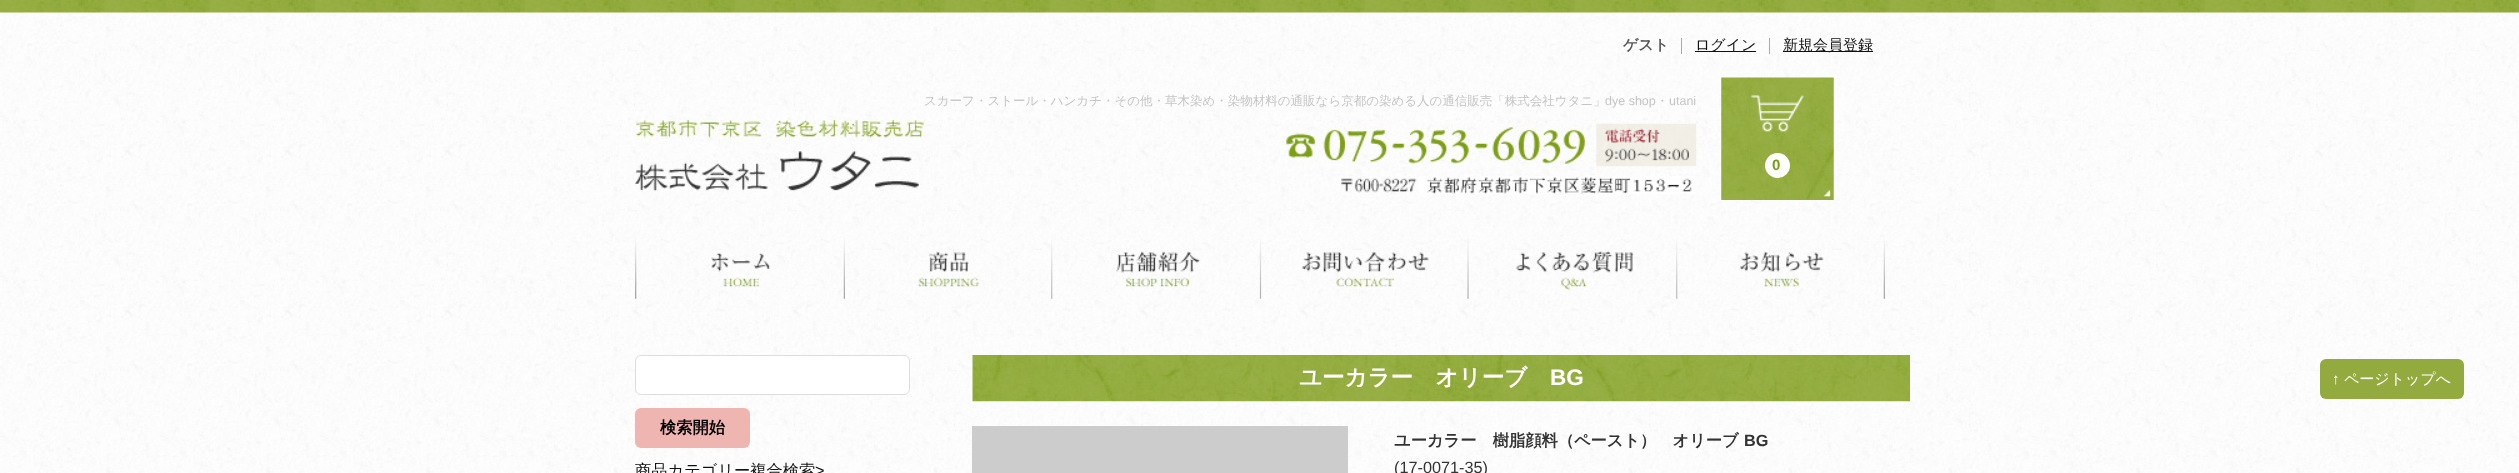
<svg xmlns="http://www.w3.org/2000/svg" width="2519" height="473" viewBox="0 0 2519 473">
  <style>*{font-kerning:none!important;font-variant-ligatures:none!important}</style>
  <style>
    .t1 { font: bold 15px WenQuanYi Zen Hei; fill: #565656; }
    .t2 { font: 500 15px WenQuanYi Zen Hei; fill: #111; }
    .t3 { font: 500 12.5px WenQuanYi Zen Hei; fill: #c5c5c5; }
    .t4 { font: 12.5px Liberation Sans; fill: #c5c5c5; }
    .t5 { font: bold 15px Liberation Sans; letter-spacing: 1px; fill: #789d0f; }
    .t6 { font: bold 16.25px WenQuanYi Zen Hei; fill: #000; }
    .t7 { font: 500 16.25px WenQuanYi Zen Hei; fill: #111; }
    .t8 { font: 16.25px Liberation Sans; fill: #111; }
    .t9 { font: bold 22.5px WenQuanYi Zen Hei; fill: #fff; }
    .t10 { font: bold 22.5px Liberation Sans; fill: #fff; }
    .t11 { font: bold 16.25px WenQuanYi Zen Hei; fill: #333; }
    .t12 { font: bold 16.25px Liberation Sans; fill: #333; }
    .t13 { font: 16.25px Liberation Sans; fill: #333; }
    .t14 { font: 15px Liberation Sans; fill: #fff; }
    .t15 { font: 500 15px WenQuanYi Zen Hei; fill: #fff; }
  </style>
  <rect width="100%" height="100%" fill="#fff"/>
  <image x="0" y="12" width="2519" height="461" href="images/1.png"/>
  <image x="0" y="0" width="2519" height="13" href="images/2.png"/>
  <rect x="1681" y="38" width="1" height="16" fill="#aaa"/>
  <text x="1623" y="50" class="t1">ゲスト</text>
  <rect x="1769" y="38" width="1" height="16" fill="#aaa"/>
  <rect x="1695" y="51" width="61" height="1" fill="#111"/>
  <text x="1695" y="50" class="t2">ログイン</text>
  <rect x="1783" y="51" width="90" height="1" fill="#111"/>
  <text x="1783" y="50" class="t2">新規会員登録</text>
  <image x="635" y="120" width="289" height="72" href="images/3.png"/>
  <text x="924" y="105" class="t3">スカーフ・ストール・ハンカチ・その他・草木染め・染物材料の通販なら京都の染める人の通信販売「株式会社ウタニ」</text>
  <text x="1605" y="105" class="t4">dye shop</text>
  <text x="1656" y="105" class="t3">・</text>
  <text x="1669" y="105" class="t4">utani</text>
  <image x="1286" y="123" width="411" height="44" href="images/4.png"/>
  <image x="1341" y="176" width="355" height="18" href="images/5.png"/>
  <image x="1721" y="77" width="113" height="123" href="images/6.png"/>
  <circle cx="1777.5" cy="165.5" r="12.5" fill="#fff"/>
  <text x="1772" y="170" class="t5">0</text>
  <image x="635" y="234" width="210" height="65" href="images/7.png"/>
  <image x="845" y="234" width="208" height="65" href="images/8.png"/>
  <image x="1052" y="234" width="210" height="65" href="images/9.png"/>
  <image x="1261" y="234" width="208" height="65" href="images/10.png"/>
  <image x="1468" y="234" width="210" height="65" href="images/11.png"/>
  <image x="1677" y="234" width="208" height="65" href="images/12.png"/>
  <rect x="635.5" y="355.5" width="274" height="39" rx="5.5" fill="#fff" stroke="#ddd"/>
  <rect x="635" y="408" width="115" height="40" rx="6" fill="#efb5b1"/>
  <text x="660" y="433" class="t6">検索開始</text>
  <text x="635" y="476" class="t7">商品カテゴリー複合検索</text>
  <text x="815" y="476" class="t8">&gt;</text>
  <image x="972" y="355" width="938" height="47" href="images/13.png"/>
  <text x="1299" y="385" class="t9">ユーカラー　オリーブ</text>
  <text x="1550" y="385" class="t10">BG</text>
  <rect x="972" y="426" width="376" height="47" fill="#ccc"/>
  <text x="1394" y="446" class="t11">ユーカラー　樹脂顔料（ペースト）　オリーブ</text>
  <text x="1744" y="446" class="t12">BG</text>
  <text x="1394" y="473" class="t13">(17-0071-35)</text>
  <rect x="2320" y="359" width="144" height="40" rx="6" fill="#93aa3e"/>
  <text x="2332" y="384" class="t14">↑</text>
  <text x="2344" y="384" class="t15">ページトップへ</text>
</svg>
